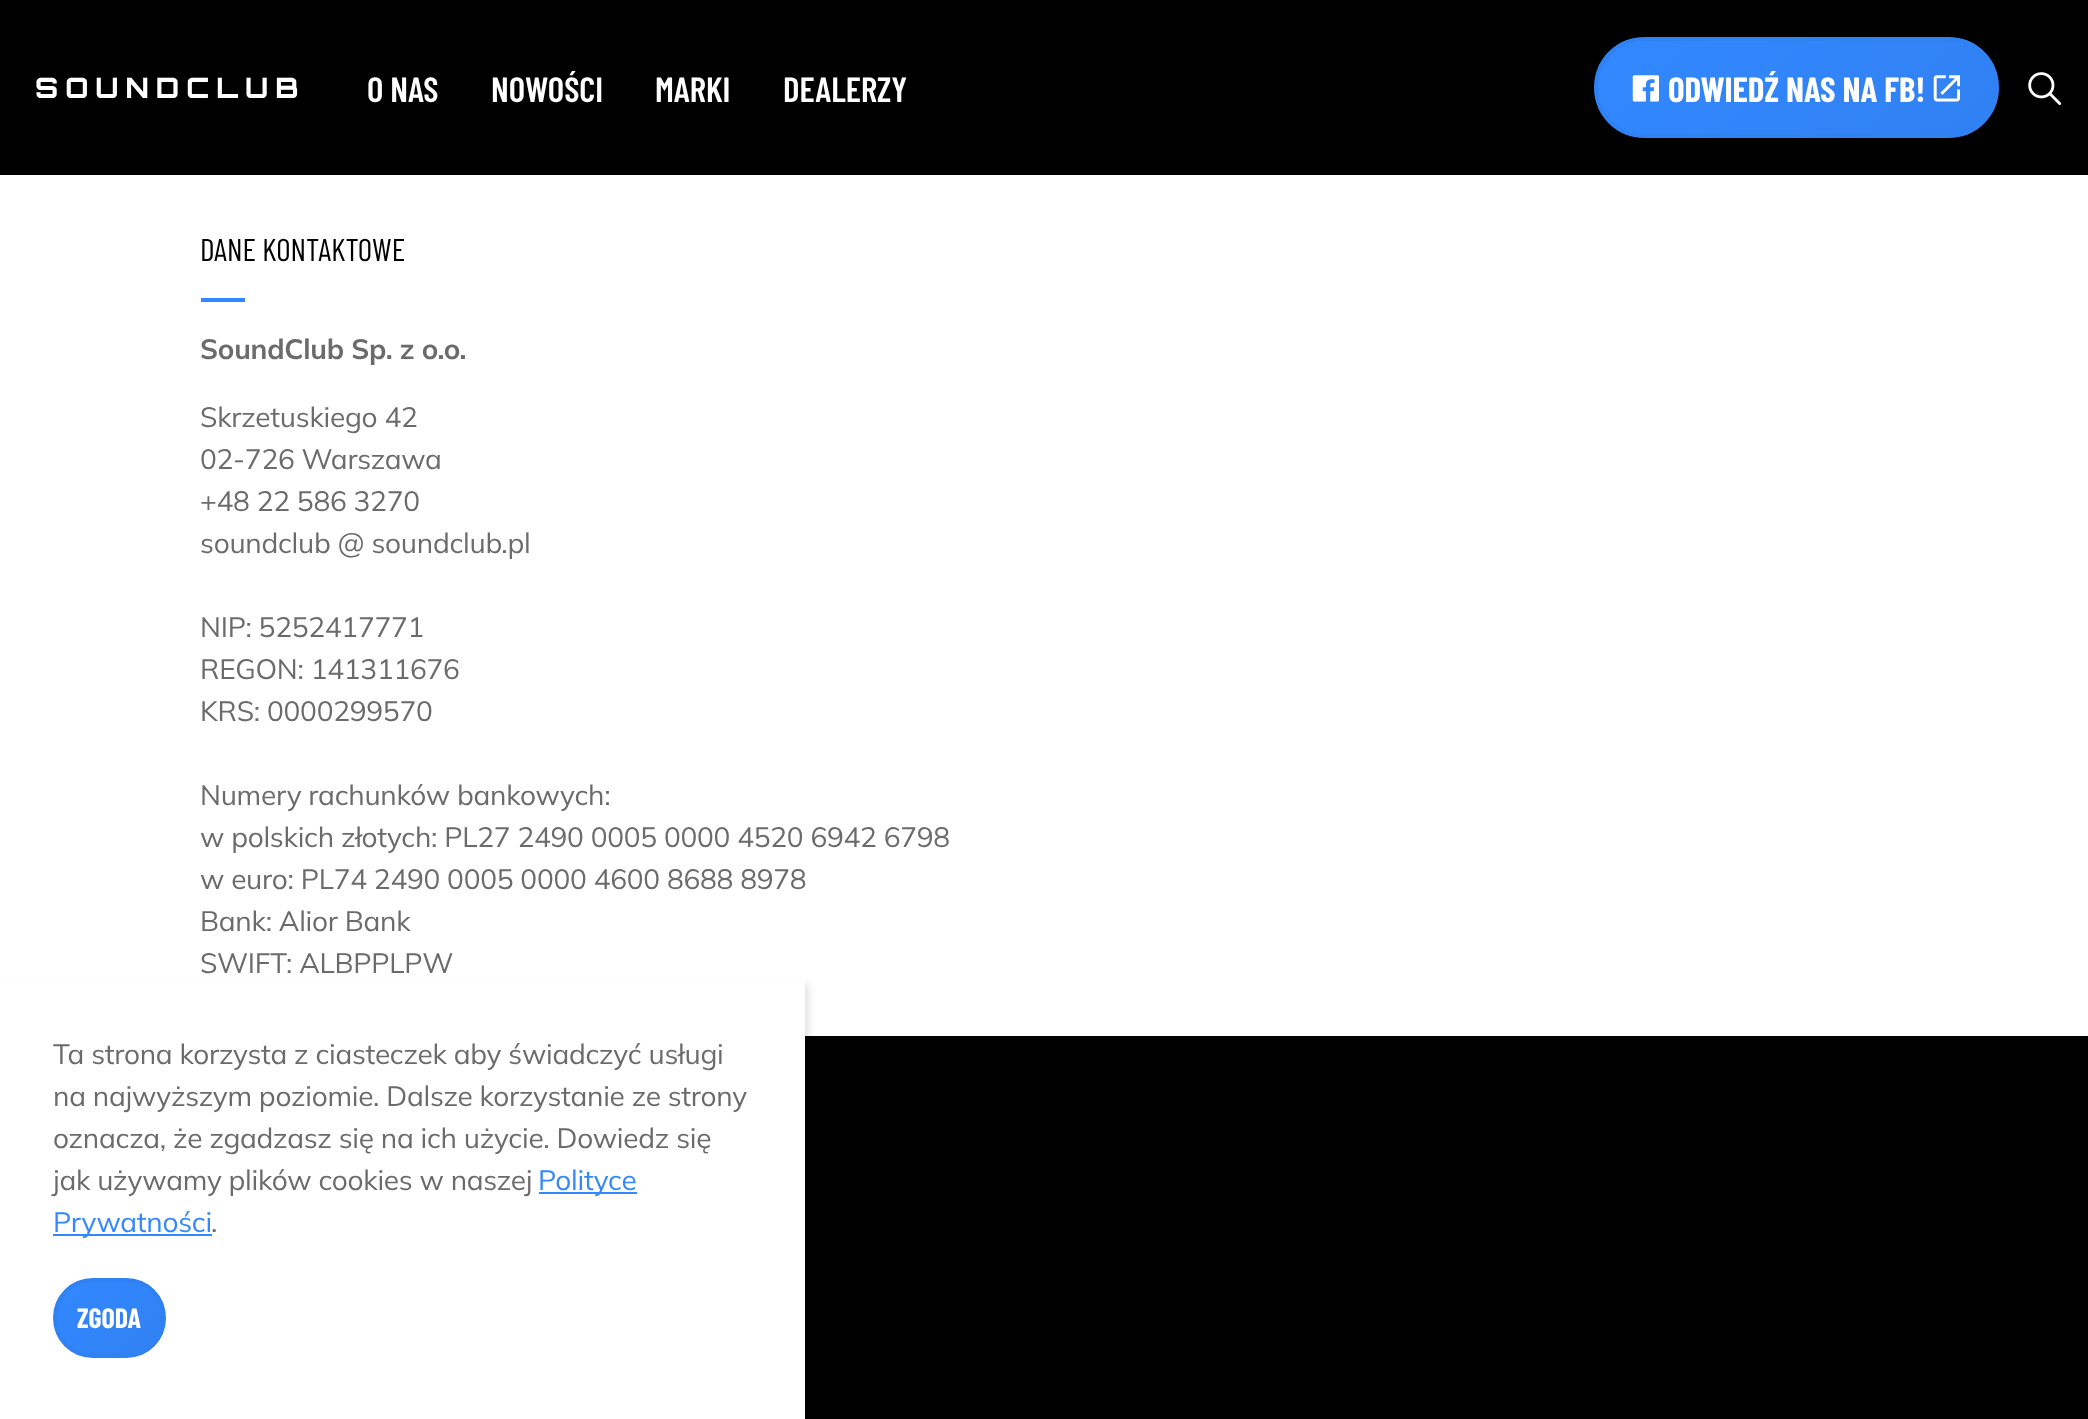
<svg xmlns="http://www.w3.org/2000/svg" width="2088" height="1419" viewBox="0 0 2088 1419">
  <style>
    .t1 { font: 800 28px Orbitron; letter-spacing: 7px; fill: #fff; }
    .t2 { font: 600 35px Barlow Condensed; fill: #fff; }
    .t3 { font: bold 35px Barlow Condensed; fill: #fff; }
    .t4 { font: 31.5px Barlow Condensed; fill: #000; }
    .t5 { font: bold 28px Mulish; letter-spacing: -0.25px; fill: #6b6b6b; }
    .t6 { font: 28px Mulish; letter-spacing: -0.25px; fill: #6b6b6b; }
    .t7 { font: 28px Mulish; letter-spacing: -0.25px; fill: #38f; }
    .t8 { font: bold 28px Barlow Condensed; fill: #fff; }
  </style>
  <defs>
    <clipPath id="clip1"><rect x="1594" y="37" width="405" height="101" rx="50.5"/></clipPath>
    <linearGradient id="g1" gradientUnits="userSpaceOnUse" x1="1673" y1="-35" x2="1919" y2="210"><stop offset="0" stop-color="#38f"/><stop offset="1" stop-color="#3081f2"/></linearGradient>
    <clipPath id="clip2"><rect x="53" y="1278" width="113" height="80" rx="40"/></clipPath>
    <linearGradient id="g2" gradientUnits="userSpaceOnUse" x1="64" y1="1273" x2="154" y2="1363"><stop offset="0" stop-color="#38f"/><stop offset="1" stop-color="#3081f2"/></linearGradient>
  </defs>
  <rect width="100%" height="100%" fill="#000"/>
  <text x="35" y="98" class="t1">SOUNDCLUB</text>
  <text x="367" y="102" class="t2">O NAS</text>
  <text x="491" y="102" class="t2">NOWOŚCI</text>
  <text x="655" y="102" class="t2">MARKI</text>
  <text x="783" y="102" class="t2">DEALERZY</text>
  <g clip-path="url(#clip1)">
    <rect x="1598" y="40" width="397" height="95" fill="url(#g1)"/>
  </g>
  <rect x="1596" y="39" width="401" height="97" rx="48.5" fill="none" stroke="#3081f2" stroke-width="4"/>
  <image x="1632" y="75" width="27" height="27" href="images/1.png"/>
  <text x="1668" y="102" class="t3">ODWIEDŹ NAS NA FB!</text>
  <image x="1933" y="75" width="27" height="27" href="images/2.png"/>
  <image x="2028" y="72" width="34" height="33" href="images/3.png"/>
  <rect x="0" y="175" width="2088" height="861" fill="#fff"/>
  <text x="200" y="261" class="t4">DANE KONTAKTOWE</text>
  <rect x="201" y="298" width="44" height="4" fill="#38f"/>
  <text x="200" y="359" class="t5">SoundClub Sp. z o.o.</text>
  <text x="200" y="427" class="t6">Skrzetuskiego 42</text>
  <text x="200" y="469" class="t6">02-726 Warszawa</text>
  <text x="200" y="511" class="t6">+48 22 586 3270</text>
  <text x="200" y="553" class="t6">soundclub @ soundclub.pl</text>
  <text x="200" y="637" class="t6">NIP: 5252417771</text>
  <text x="200" y="679" class="t6">REGON: 141311676</text>
  <text x="200" y="721" class="t6">KRS: 0000299570</text>
  <text x="200" y="805" class="t6">Numery rachunków bankowych:</text>
  <text x="200" y="847" class="t6">w polskich złotych: PL27 2490 0005 0000 4520 6942 6798</text>
  <text x="200" y="889" class="t6">w euro: PL74 2490 0005 0000 4600 8688 8978</text>
  <text x="200" y="931" class="t6">Bank: Alior Bank</text>
  <text x="200" y="973" class="t6">SWIFT: ALBPPLPW</text>
  <rect x="4" y="984" width="805" height="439" fill="#0000001a" filter="blur(3.5px)"/>
  <rect x="0" y="980" width="805" height="439" fill="#fff"/>
  <text x="53" y="1064" class="t6">Ta strona korzysta z ciasteczek aby świadczyć usługi</text>
  <text x="53" y="1106" class="t6">na najwyższym poziomie. Dalsze korzystanie ze strony</text>
  <text x="53" y="1148" class="t6">oznacza, że zgadzasz się na ich użycie. Dowiedz się</text>
  <text x="53" y="1190" class="t6">jak używamy plików cookies w naszej</text>
  <rect x="539" y="1192" width="98" height="2" fill="#38f"/>
  <text x="538" y="1190" class="t7">Polityce</text>
  <rect x="53" y="1234" width="159" height="2" fill="#38f"/>
  <text x="53" y="1232" class="t7">Prywatności</text>
  <text x="211" y="1232" class="t6">.</text>
  <g clip-path="url(#clip2)">
    <rect x="56" y="1281" width="107" height="74" fill="url(#g2)"/>
  </g>
  <rect x="55" y="1280" width="109" height="76" rx="38" fill="none" stroke="#3081f2" stroke-width="4"/>
  <text x="77" y="1328" class="t8">ZGODA</text>
</svg>
